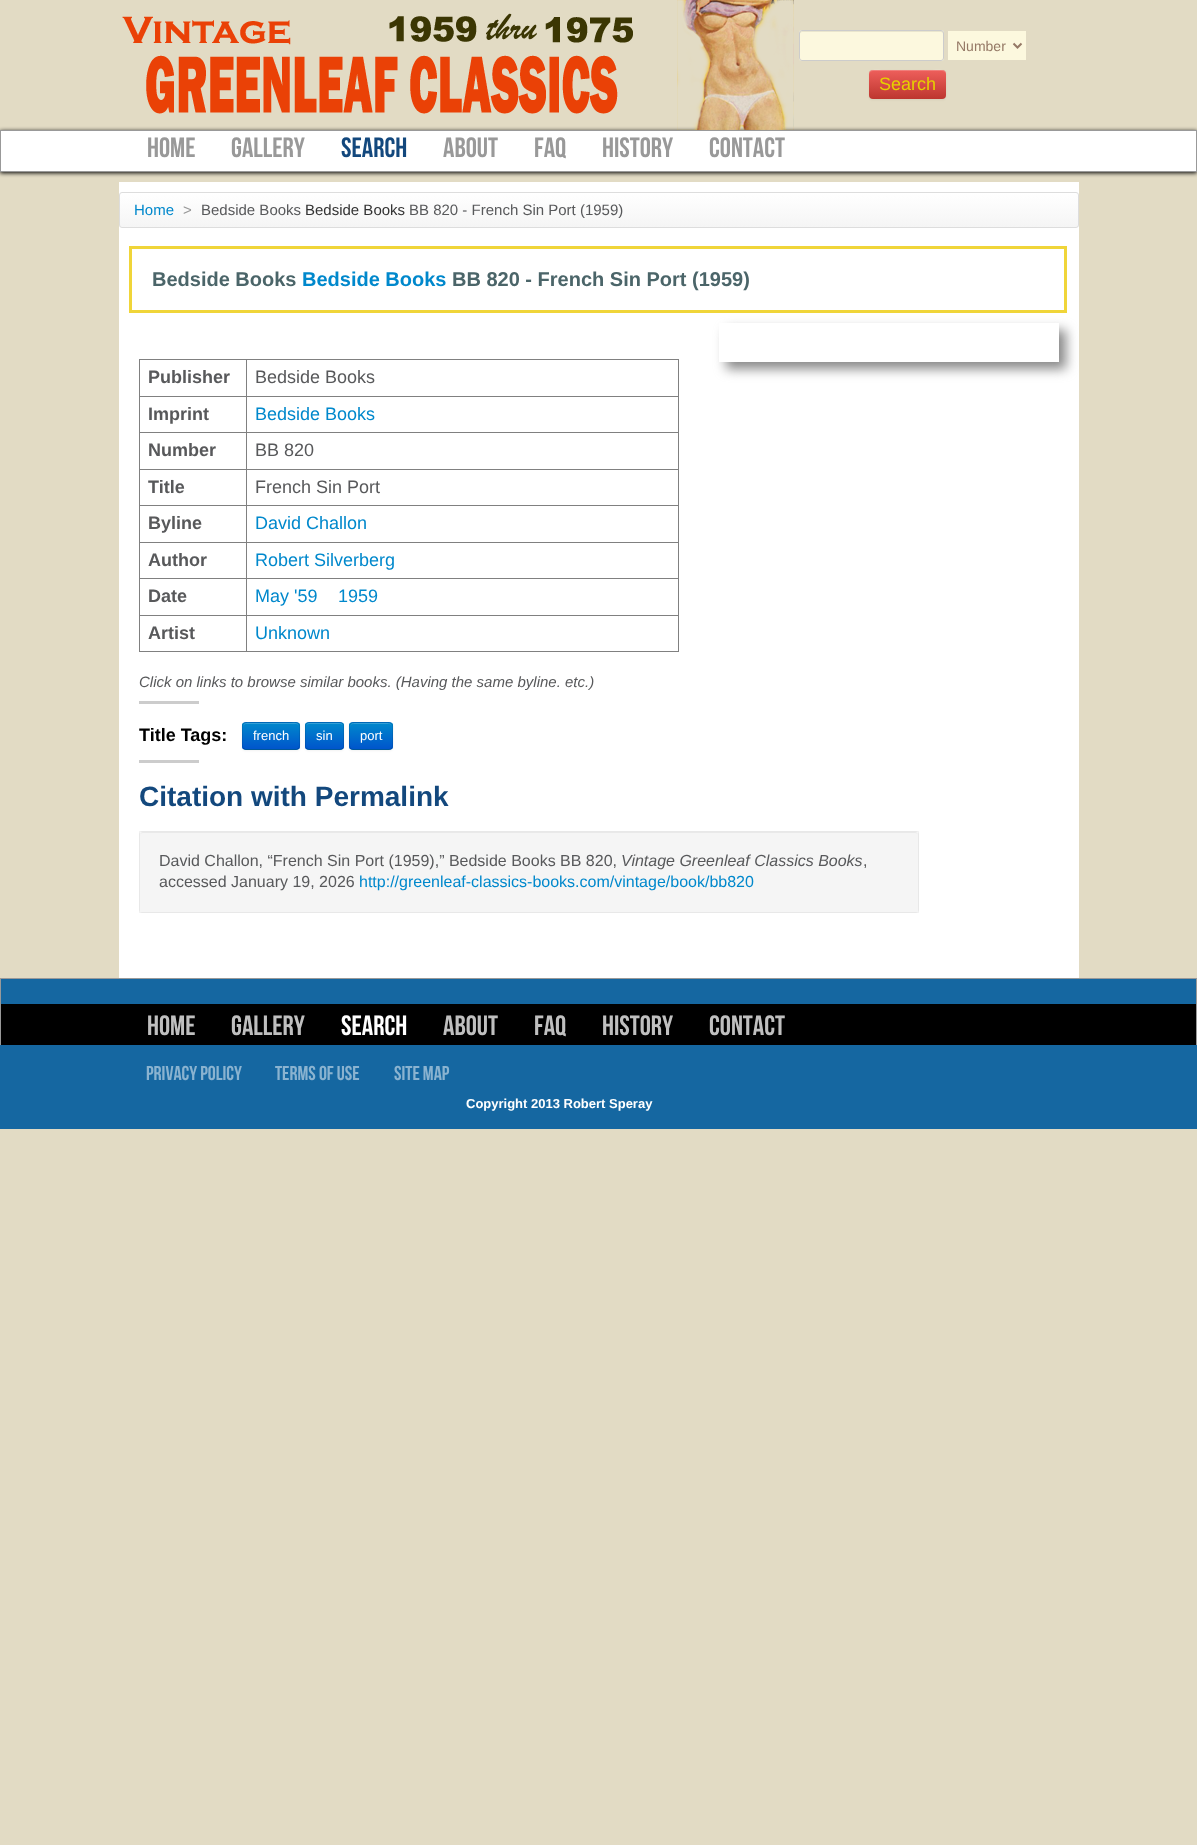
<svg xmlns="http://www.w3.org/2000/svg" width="1197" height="1845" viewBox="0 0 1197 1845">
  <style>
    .t1 { font: 14px Liberation Sans; fill: #957966; }
    .t2 { font: 18px Liberation Sans; fill: #e6d000; }
    .t3 { font: 28px Bebas Neue; fill: #999; }
    .t4 { font: 28px Bebas Neue; fill: #13487d; }
    .t5 { font: 15px Liberation Sans; fill: #08c; }
    .t6 { font: 15px Liberation Sans; fill: #999; }
    .t7 { font: 15px Liberation Sans; fill: #58595b; }
    .t8 { font: 15px Liberation Sans; fill: #333; }
    .t9 { font: bold 20px Liberation Sans; fill: #4b6569; }
    .t10 { font: bold 20px Liberation Sans; fill: #08c; }
    .t11 { font: bold 18px Liberation Sans; fill: #58595b; }
    .t12 { font: 18px Liberation Sans; fill: #58595b; }
    .t13 { font: 18px Liberation Sans; fill: #08c; }
    .t14 { font: italic 15px Liberation Sans; fill: #58595b; }
    .t15 { font: bold 18px Liberation Sans; fill: #000; }
    .t16 { font: 13px Liberation Sans; fill: #fff; }
    .t17 { font: bold 28px Liberation Sans; fill: #13487d; }
    .t18 { font: 16px Liberation Sans; fill: #58595b; }
    .t19 { font: italic 16px Liberation Sans; fill: #58595b; }
    .t20 { font: 16px Liberation Sans; fill: #08c; }
    .t21 { font: 28px Bebas Neue; fill: #bfbfbf; }
    .t22 { font: 28px Bebas Neue; fill: #fff; }
    .t23 { font: 20px Bebas Neue; fill: #8ab3d0; }
    .t24 { font: bold 13px Liberation Sans; fill: #fff; }
  </style>
  <defs>
    <linearGradient id="g1" gradientUnits="userSpaceOnUse" x1="908" y1="70" x2="908" y2="99"><stop offset="0" stop-color="#ee5f5b"/><stop offset="1" stop-color="#bd362f"/></linearGradient>
    <clipPath id="clip1"><rect x="119" y="192" width="960" height="36" rx="3"/></clipPath>
    <linearGradient id="g2" gradientUnits="userSpaceOnUse" x1="599" y1="193" x2="599" y2="227"><stop offset="0" stop-color="#fff"/><stop offset="1" stop-color="#f5f5f5"/></linearGradient>
    <clipPath id="clip2"><path d="M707 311H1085V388H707ZM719 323H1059V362H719Z" clip-rule="evenodd"/></clipPath>
    <clipPath id="clip3"><rect x="242" y="722" width="58" height="28" rx="4"/></clipPath>
    <linearGradient id="g3" gradientUnits="userSpaceOnUse" x1="271" y1="723" x2="271" y2="749"><stop offset="0" stop-color="#08c"/><stop offset="1" stop-color="#05c"/></linearGradient>
    <clipPath id="clip4"><rect x="305" y="722" width="39" height="28" rx="4"/></clipPath>
    <linearGradient id="g4" gradientUnits="userSpaceOnUse" x1="325" y1="723" x2="325" y2="749"><stop offset="0" stop-color="#08c"/><stop offset="1" stop-color="#05c"/></linearGradient>
    <clipPath id="clip5"><rect x="349" y="722" width="44" height="28" rx="4"/></clipPath>
    <linearGradient id="g5" gradientUnits="userSpaceOnUse" x1="371" y1="723" x2="371" y2="749"><stop offset="0" stop-color="#08c"/><stop offset="1" stop-color="#05c"/></linearGradient>
  </defs>
  <rect width="100%" height="100%" fill="#e2dbc4"/>
  <image x="122" y="13" width="511" height="101" href="images/1.png"/>
  <rect x="0" y="131" width="1197" height="42" fill="#000" filter="blur(2px)"/>
  <image x="677" y="0" width="117" height="130" href="images/2.png"/>
  <rect x="799" y="30" width="145" height="31" rx="3" fill="#fcf8de"/>
  <path d="M802 32H941C942 32 943 33 943 34C943 33 943 32 942 31H802L800 32V34C800 33 801 32 802 32Z" fill="#e9e5cd"/>
  <rect x="799.5" y="30.5" width="144" height="30" rx="2.5" fill="none" stroke="#ccc"/>
  <rect x="948" y="31" width="78" height="29" fill="#fcf8de"/>
  <path d="M1013.5 43.5L1017.5 47.5L1021.5 43.5" fill="none" stroke="#957966" stroke-width="2"/>
  <text x="956" y="51" class="t1">Number</text>
  <rect x="869" y="71" width="77" height="29" rx="4" fill="#0000000d" filter="blur(1px)"/>
  <rect x="869" y="70" width="77" height="29" rx="4" fill="url(#g1)"/>
  <path d="M873 71H942C944 71 946 73 946 75C946 67 935 70 930 70H884C880 70 869 67 869 75C869 73 871 71 873 71Z" fill="#ffffff33"/>
  <text x="879" y="90" class="t2">Search</text>
  <rect x="0.5" y="130.5" width="1196" height="41" fill="none" stroke="#999"/>
  <rect x="1" y="131" width="1195" height="40" fill="#fff"/>
  <text x="147" y="157" class="t3">HOME</text>
  <text x="231" y="157" class="t3">GALLERY</text>
  <text x="341" y="157" class="t4">SEARCH</text>
  <text x="443" y="157" class="t3">ABOUT</text>
  <text x="534" y="157" class="t3">FAQ</text>
  <text x="602" y="157" class="t3">HISTORY</text>
  <text x="709" y="157" class="t3">CONTACT</text>
  <rect x="119" y="182" width="960" height="796" fill="#fff"/>
  <g clip-path="url(#clip1)">
    <rect x="119" y="193" width="960" height="34" fill="url(#g2)"/>
  </g>
  <rect x="119.5" y="192.5" width="959" height="35" rx="2.5" fill="none" stroke="#ddd"/>
  <text x="134" y="215" class="t5">Home</text>
  <text x="183" y="215" class="t6">&gt;</text>
  <text x="201" y="215" class="t7">Bedside Books</text>
  <text x="305" y="215" class="t8">Bedside Books</text>
  <text x="409" y="215" class="t7">BB 820 - French Sin Port (1959)</text>
  <rect x="130.5" y="247.5" width="935" height="64" fill="none" stroke="#f0d539" stroke-width="3"/>
  <text x="152" y="286" class="t9">Bedside Books</text>
  <text x="302" y="286" class="t10">Bedside Books</text>
  <text x="452" y="286" class="t9">BB 820 - French Sin Port (1959)</text>
  <g clip-path="url(#clip2)">
    <rect x="726" y="330" width="340" height="39" fill="#888" filter="blur(6px)"/>
  </g>
  <rect x="139" y="359" width="540" height="1" fill="#808080"/>
  <rect x="678" y="359" width="1" height="293" fill="#808080"/>
  <rect x="139" y="651" width="540" height="1" fill="#808080"/>
  <rect x="139" y="359" width="1" height="293" fill="#808080"/>
  <text x="148" y="383" class="t11">Publisher</text>
  <rect x="246" y="396" width="433" height="1" fill="#808080"/>
  <rect x="246" y="432" width="433" height="1" fill="#808080"/>
  <rect x="246" y="469" width="433" height="1" fill="#808080"/>
  <rect x="246" y="505" width="433" height="1" fill="#808080"/>
  <rect x="246" y="542" width="433" height="1" fill="#808080"/>
  <rect x="246" y="578" width="433" height="1" fill="#808080"/>
  <rect x="246" y="615" width="433" height="1" fill="#808080"/>
  <rect x="246" y="615" width="1" height="37" fill="#808080"/>
  <rect x="139" y="615" width="108" height="1" fill="#808080"/>
  <rect x="246" y="578" width="1" height="38" fill="#808080"/>
  <rect x="139" y="578" width="108" height="1" fill="#808080"/>
  <rect x="246" y="542" width="1" height="37" fill="#808080"/>
  <rect x="139" y="542" width="108" height="1" fill="#808080"/>
  <rect x="246" y="505" width="1" height="38" fill="#808080"/>
  <rect x="139" y="505" width="108" height="1" fill="#808080"/>
  <rect x="246" y="469" width="1" height="37" fill="#808080"/>
  <rect x="139" y="469" width="108" height="1" fill="#808080"/>
  <rect x="246" y="432" width="1" height="38" fill="#808080"/>
  <rect x="139" y="432" width="108" height="1" fill="#808080"/>
  <rect x="246" y="396" width="1" height="37" fill="#808080"/>
  <rect x="139" y="396" width="108" height="1" fill="#808080"/>
  <rect x="246" y="359" width="1" height="38" fill="#808080"/>
  <text x="255" y="383" class="t12">Bedside Books</text>
  <text x="148" y="420" class="t11">Imprint</text>
  <text x="255" y="420" class="t13">Bedside Books</text>
  <text x="148" y="456" class="t11">Number</text>
  <text x="255" y="456" class="t12">BB 820</text>
  <text x="148" y="493" class="t11">Title</text>
  <text x="255" y="493" class="t12">French Sin Port</text>
  <text x="148" y="529" class="t11">Byline</text>
  <text x="255" y="529" class="t13">David Challon</text>
  <text x="148" y="566" class="t11">Author</text>
  <text x="255" y="566" class="t13">Robert Silverberg</text>
  <text x="148" y="602" class="t11">Date</text>
  <text x="255" y="602" class="t13">May '59</text>
  <text x="338" y="602" class="t13">1959</text>
  <text x="148" y="639" class="t11">Artist</text>
  <text x="255" y="639" class="t13">Unknown</text>
  <text x="139" y="687" class="t14">Click on links to browse similar books. (Having the same byline. etc.)</text>
  <rect x="139" y="701" width="60" height="3" fill="#ccc"/>
  <text x="139" y="741" class="t15">Title Tags:</text>
  <rect x="242" y="723" width="58" height="28" rx="4" fill="#0000000d" filter="blur(1px)"/>
  <rect x="242" y="722" width="58" height="28" rx="4" fill="#0074cc"/>
  <g clip-path="url(#clip3)">
    <rect x="242" y="723" width="58" height="26" fill="url(#g3)"/>
  </g>
  <path d="M246 724H296C298 724 299 725 299 727C299 721 292 723 288 723H254C250 723 243 721 243 727C243 725 244 724 246 724Z" fill="#339fd6"/>
  <path d="M298.5 748.5L296.5 749.5H245.5L243.5 748.5" fill="none" stroke="#00000040"/>
  <path d="M243.5 748.5C241.5 746 242.5 738.5 242.5 736C242.5 722 240 722.5 254.5 722.5H287.5C302 722.5 299.5 722 299.5 736C299.5 738.5 300.5 746 298.5 748.5" fill="none" stroke="#0000001a"/>
  <text x="253" y="740" class="t16">french</text>
  <rect x="305" y="723" width="39" height="28" rx="4" fill="#0000000d" filter="blur(1px)"/>
  <rect x="305" y="722" width="39" height="28" rx="4" fill="#0074cc"/>
  <g clip-path="url(#clip4)">
    <rect x="305" y="723" width="39" height="26" fill="url(#g4)"/>
  </g>
  <path d="M309 724H340C342 724 343 725 343 727C343 722 339 723 335 723H314C310 723 306 722 306 727C306 725 307 724 309 724Z" fill="#339fd6"/>
  <path d="M342.5 748.5C342 749 341 749.5 340 749.5H309C308 749.5 307 749 306.5 748.5" fill="none" stroke="#00000040"/>
  <path d="M306.5 748.5C306 748 305.5 747 305.5 746V726C305.5 725 306 724 306.5 723.5C307 723 308 722.5 309 722.5H340C341 722.5 342 723 342.5 723.5C343 724 343.5 725 343.5 726V746C343.5 747 343 748 342.5 748.5" fill="none" stroke="#0000001a"/>
  <text x="316" y="740" class="t16">sin</text>
  <rect x="349" y="723" width="44" height="28" rx="4" fill="#0000000d" filter="blur(1px)"/>
  <rect x="349" y="722" width="44" height="28" rx="4" fill="#0074cc"/>
  <g clip-path="url(#clip5)">
    <rect x="349" y="723" width="44" height="26" fill="url(#g5)"/>
  </g>
  <path d="M353 724H389C391 724 392 725 392 727C392 722 387 723 383 723H359C355 723 350 722 350 727C350 725 351 724 353 724Z" fill="#339fd6"/>
  <path d="M391.5 748.5C391 749 390 749.5 389 749.5H353C352 749.5 351 749 350.5 748.5" fill="none" stroke="#00000040"/>
  <path d="M350.5 748.5C348.5 746 349.5 738.5 349.5 736C349.5 723.5 347 722.5 359 722.5H383C395 722.5 392.5 723.5 392.5 736C392.5 738.5 393.5 746 391.5 748.5" fill="none" stroke="#0000001a"/>
  <text x="360" y="740" class="t16">port</text>
  <rect x="139" y="760" width="60" height="3" fill="#ccc"/>
  <text x="139" y="806" class="t17">Citation with Permalink</text>
  <rect x="139" y="831" width="780" height="82" rx="4" fill="#f5f5f5"/>
  <path d="M143 833H915C917 833 918 834 918 836C918 834 917 832 915 832H143C141 832 140 834 140 836C140 834 141 833 143 833Z" fill="#e9e9e9"/>
  <rect x="139.5" y="831.5" width="779" height="81" fill="none" stroke="#0000000d"/>
  <text x="159" y="866" class="t18">David Challon, “French Sin Port (1959),” Bedside Books BB 820,</text>
  <text x="621" y="866" class="t19">Vintage Greenleaf Classics Books</text>
  <text x="863" y="866" class="t18">,</text>
  <text x="159" y="887" class="t18">accessed January 19, 2026</text>
  <text x="359" y="887" class="t20">http://greenleaf-classics-books.com/vintage/book/bb820</text>
  <rect x="1" y="979" width="1195" height="25" fill="#1567a1"/>
  <rect x="0.5" y="978.5" width="1196" height="66" fill="none" stroke="#999"/>
  <rect x="1" y="1004" width="1195" height="41" fill="#000"/>
  <text x="147" y="1035" class="t21">HOME</text>
  <text x="231" y="1035" class="t21">GALLERY</text>
  <text x="341" y="1035" class="t22">SEARCH</text>
  <text x="443" y="1035" class="t21">ABOUT</text>
  <text x="534" y="1035" class="t21">FAQ</text>
  <text x="602" y="1035" class="t21">HISTORY</text>
  <text x="709" y="1035" class="t21">CONTACT</text>
  <rect x="0" y="1045" width="1197" height="84" fill="#1567a1"/>
  <text x="146" y="1080" class="t23">PRIVACY POLICY</text>
  <text x="275" y="1080" class="t23">TERMS OF USE</text>
  <text x="394" y="1080" class="t23">SITE MAP</text>
  <text x="466" y="1108" class="t24">Copyright 2013 Robert Speray</text>
</svg>
